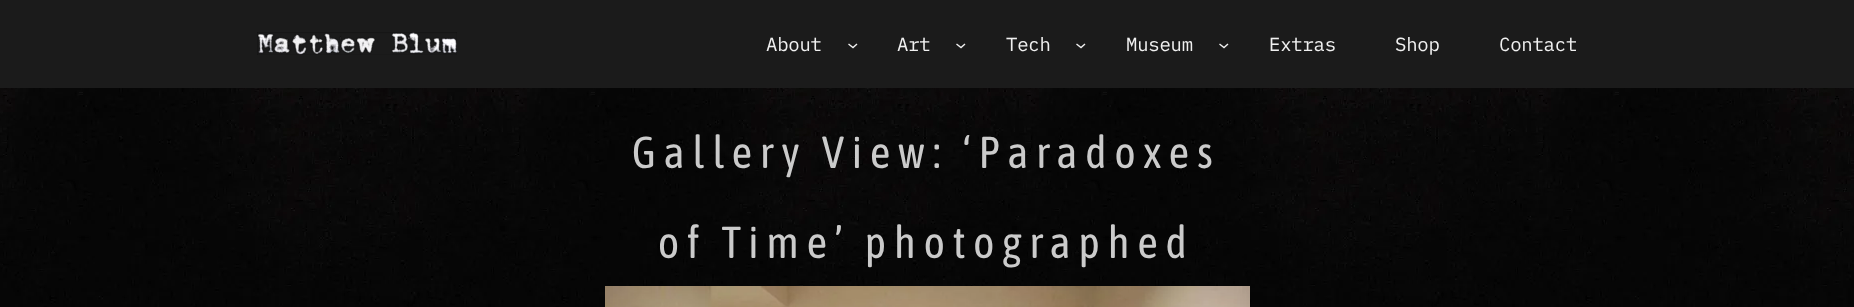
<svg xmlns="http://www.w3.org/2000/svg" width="1854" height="307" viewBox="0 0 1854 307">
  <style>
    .t1 { font: 19px IBM Plex Mono; letter-spacing: -0.25px; fill: #f0f0f0; }
    .t2 { font: 44.75px Asap Condensed; letter-spacing: 8px; fill: #cbcbcb; }
  </style>
  <rect width="100%" height="100%" fill="#fff"/>
  <image x="0" y="88" width="1854" height="219" href="images/1.png"/>
  <rect x="0" y="0" width="1854" height="88" fill="#1b1b1b"/>
  <image x="257" y="32" width="200" height="23" href="images/2.png"/>
  <text x="766" y="51" class="t1">About</text>
  <path d="M848.5 44L853 47.5L857 44" fill="none" stroke="#f0f0f0" stroke-width="1.4"/>
  <text x="897" y="51" class="t1">Art</text>
  <path d="M956.5 44L961 47.5L965 44" fill="none" stroke="#f0f0f0" stroke-width="1.4"/>
  <text x="1006" y="51" class="t1">Tech</text>
  <path d="M1076.5 44L1081 47.5L1085 44" fill="none" stroke="#f0f0f0" stroke-width="1.4"/>
  <text x="1126" y="51" class="t1">Museum</text>
  <path d="M1219.5 44L1224 47.5L1228 44" fill="none" stroke="#f0f0f0" stroke-width="1.4"/>
  <text x="1269" y="51" class="t1">Extras</text>
  <text x="1395" y="51" class="t1">Shop</text>
  <text x="1499" y="51" class="t1">Contact</text>
  <text x="632" y="168" class="t2">Gallery View: ‘Paradoxes</text>
  <text x="658" y="258" class="t2">of Time’ photographed</text>
  <image x="605" y="286" width="645" height="21" href="images/3.png"/>
</svg>
